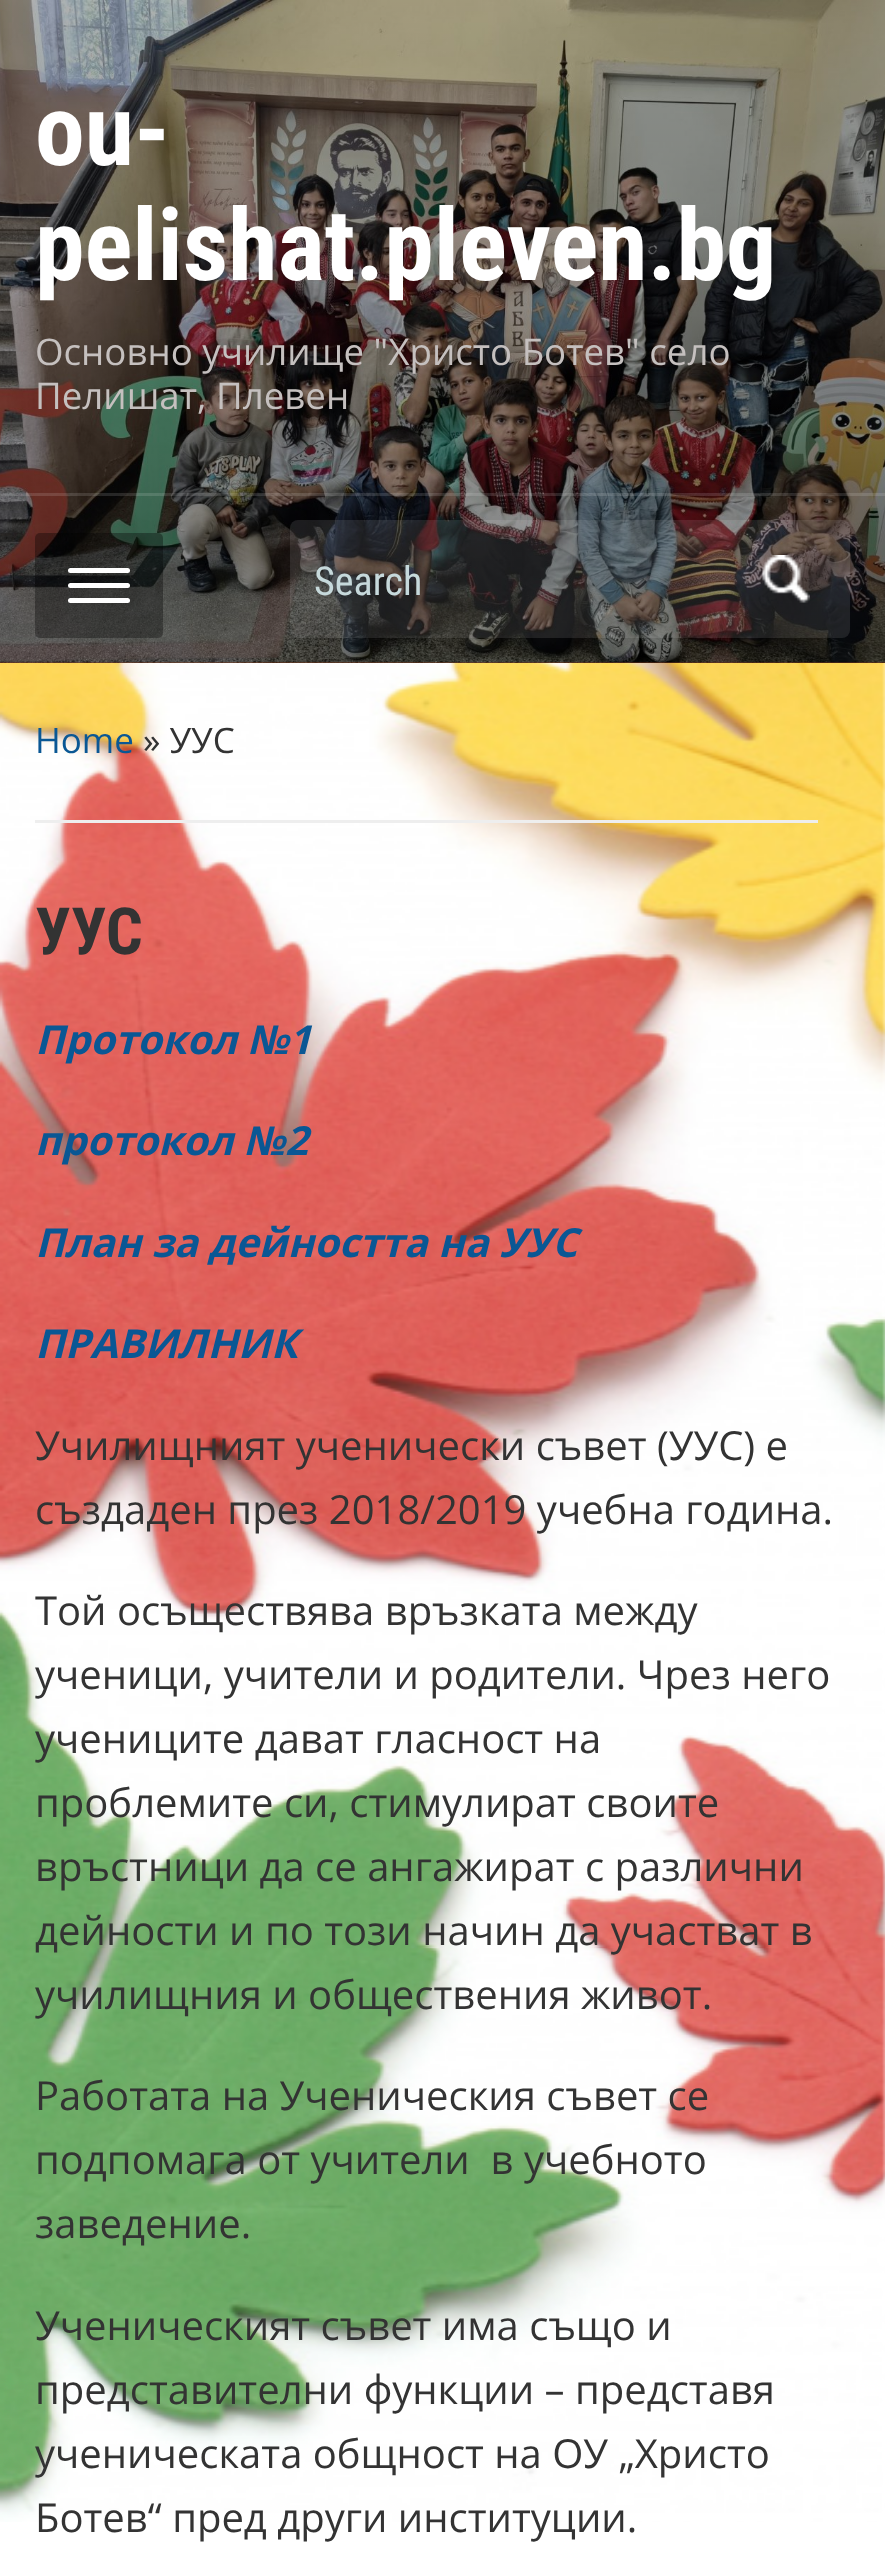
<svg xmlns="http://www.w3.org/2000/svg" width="885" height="2551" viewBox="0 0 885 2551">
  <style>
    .t1 { font: bold 100px Roboto Condensed; fill: #fff; }
    .t2 { font: 36.7px Open Sans; fill: #c5c0bf; }
    .t3 { font: 40px Roboto Condensed; fill: #c6d9db; }
    .t4 { font: 35px Open Sans; fill: #0a5794; }
    .t5 { font: 35px Open Sans; fill: #333; }
    .t6 { font: bold 65px Roboto Condensed; fill: #333; }
    .t7 { font: italic bold 40px Open Sans; fill: #0a5794; }
    .t8 { font: 40px Open Sans; fill: #333; }
  </style>
  <defs>
    <linearGradient id="g1" gradientUnits="userSpaceOnUse" x1="442" y1="0" x2="443" y2="663"><stop offset="0" stop-color="#000" stop-opacity="0.3"/><stop offset="1" stop-color="#000" stop-opacity="0.5"/></linearGradient>
  </defs>
  <rect width="100%" height="100%" fill="#fff"/>
  <image x="0" y="663" width="885" height="1859" href="images/1.png"/>
  <rect x="0" y="662" width="885" height="1" fill="#d8602d"/>
  <image x="0" y="0" width="885" height="663" href="images/2.png"/>
  <rect x="0" y="0" width="885" height="663" fill="url(#g1)"/>
  <text x="35" y="165" class="t1">ou-</text>
  <text x="35" y="280" class="t1">pelishat.pleven.bg</text>
  <text x="35" y="365" class="t2">Основно училище "Христо Ботев" село</text>
  <text x="35" y="409" class="t2">Пелишат, Плевен</text>
  <rect x="0" y="493" width="885" height="3" fill="#ffffff21"/>
  <rect x="35" y="533" width="128" height="105" rx="5" fill="#00000054"/>
  <rect x="68" y="568" width="62" height="5" rx="2.5" fill="#fff"/>
  <rect x="68" y="583" width="62" height="5" rx="2.5" fill="#fff"/>
  <rect x="68" y="598" width="62" height="5" rx="2.5" fill="#fff"/>
  <rect x="290" y="520" width="560" height="118" rx="8" fill="#ffffff1a"/>
  <text x="314" y="595" class="t3">Search</text>
  <image x="762" y="555" width="48" height="48" href="images/3.png"/>
  <rect x="35" y="820" width="783" height="3" fill="#eee"/>
  <text x="35" y="753" class="t4">Home</text>
  <text x="143" y="753" class="t5">» УУС</text>
  <text x="35" y="954" class="t6">УУС</text>
  <text x="35" y="1054" class="t7">Протокол №1</text>
  <text x="35" y="1155" class="t7">протокол №2</text>
  <text x="35" y="1257" class="t7">План за дейността на УУС</text>
  <text x="35" y="1358" class="t7">ПРАВИЛНИК</text>
  <text x="35" y="1460" class="t8">Училищният ученически съвет (УУС) е</text>
  <text x="35" y="1524" class="t8">създаден през 2018/2019 учебна година.</text>
  <text x="35" y="1625" class="t8">Той осъществява връзката между</text>
  <text x="35" y="1689" class="t8">ученици, учители и родители. Чрез него</text>
  <text x="35" y="1753" class="t8">учениците дават гласност на</text>
  <text x="35" y="1817" class="t8">проблемите си, стимулират своите</text>
  <text x="35" y="1881" class="t8">връстници да се ангажират с различни</text>
  <text x="35" y="1945" class="t8">дейности и по този начин да участват в</text>
  <text x="35" y="2009" class="t8">училищния и обществения живот.</text>
  <text x="35" y="2110" class="t8">Работата на Ученическия съвет се</text>
  <text x="35" y="2174" class="t8" xml:space="preserve">подпомага от учители  в учебното</text>
  <text x="35" y="2238" class="t8">заведение.</text>
  <text x="35" y="2340" class="t8">Ученическият съвет има също и</text>
  <text x="35" y="2404" class="t8">представителни функции – представя</text>
  <text x="35" y="2468" class="t8">ученическата общност на ОУ „Христо</text>
  <text x="35" y="2532" class="t8">Ботев“ пред други институции.</text>
</svg>
